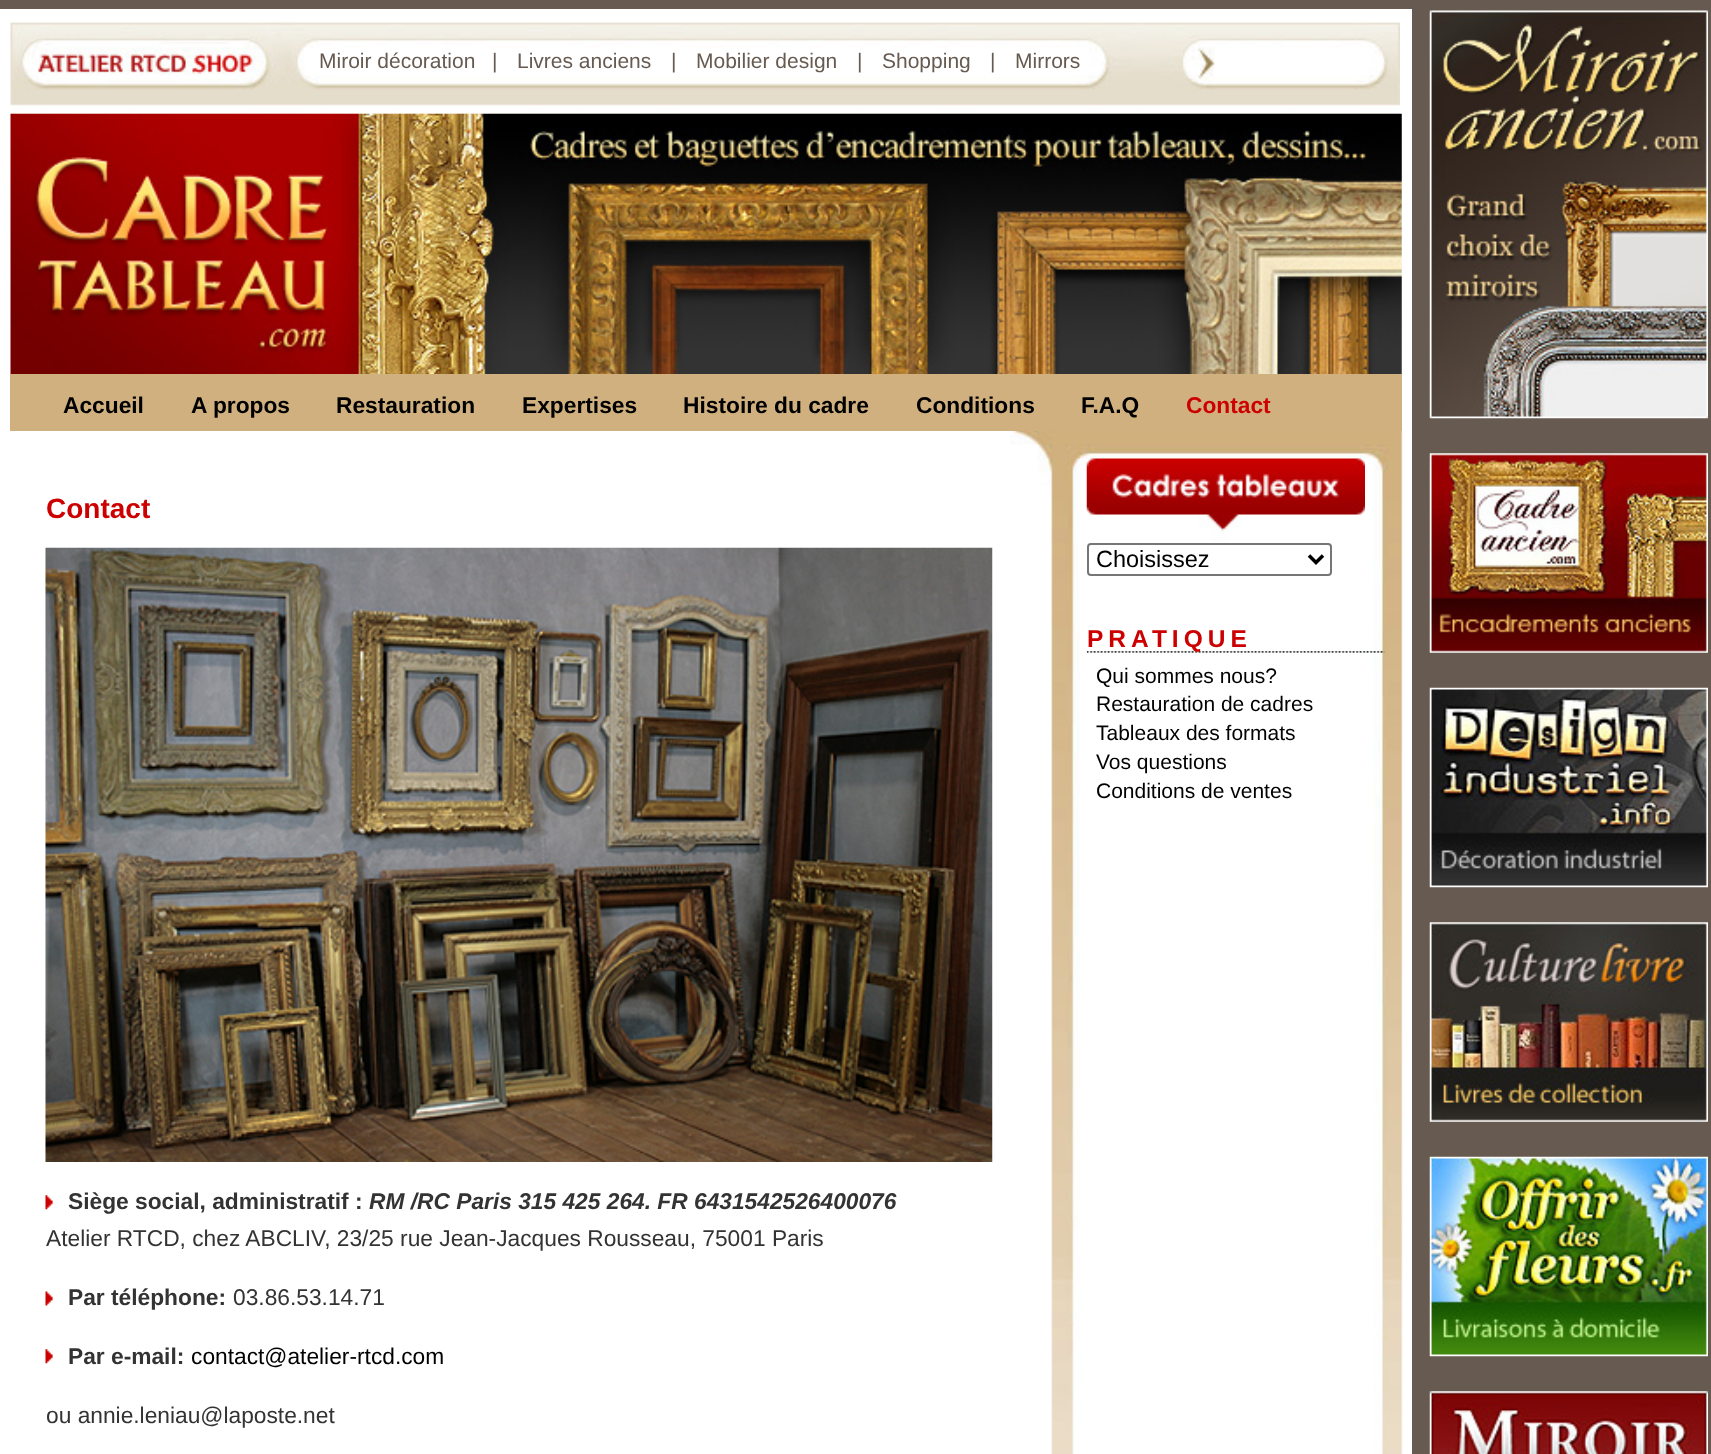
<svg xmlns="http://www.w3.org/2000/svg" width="1711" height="1454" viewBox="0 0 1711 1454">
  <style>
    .t1 { font: 21px Liberation Sans; fill: #675a50; }
    .t2 { font: bold 22.75px Liberation Sans; fill: #000; }
    .t3 { font: bold 22.75px Liberation Sans; fill: #c00; }
    .t4 { font: bold 28px Liberation Sans; fill: #c00; }
    .t5 { font: bold 22.75px Liberation Sans; fill: #333; }
    .t6 { font: italic bold 22.75px Liberation Sans; fill: #333; }
    .t7 { font: 22.75px Liberation Sans; fill: #333; }
    .t8 { font: 22.75px Liberation Sans; fill: #000; }
    .t9 { font: 23.5px Liberation Sans; fill: #000; }
    .t10 { font: bold 24.5px Liberation Sans; letter-spacing: 5px; fill: #c00; }
    .t11 { font: 21px Liberation Sans; fill: #000; }
  </style>
  <rect width="100%" height="100%" fill="#675a50"/>
  <rect x="0" y="9" width="1412" height="1445" fill="#fff"/>
  <image x="1010" y="430" width="393" height="1024" href="images/1.png"/>
  <image x="10" y="21" width="1390" height="93" href="images/2.png"/>
  <text x="319" y="68" class="t1">Miroir décoration</text>
  <text x="492" y="68" class="t1">|</text>
  <text x="517" y="68" class="t1">Livres anciens</text>
  <text x="671" y="68" class="t1">|</text>
  <text x="696" y="68" class="t1">Mobilier design</text>
  <text x="857" y="68" class="t1">|</text>
  <text x="882" y="68" class="t1">Shopping</text>
  <text x="990" y="68" class="t1">|</text>
  <text x="1015" y="68" class="t1">Mirrors</text>
  <image x="10" y="113" width="1392" height="261" href="images/3.png"/>
  <rect x="10" y="374" width="1392" height="57" fill="#d0b07e"/>
  <text x="63" y="413" class="t2">Accueil</text>
  <text x="191" y="413" class="t2">A propos</text>
  <text x="336" y="413" class="t2">Restauration</text>
  <text x="522" y="413" class="t2">Expertises</text>
  <text x="683" y="413" class="t2">Histoire du cadre</text>
  <text x="916" y="413" class="t2">Conditions</text>
  <text x="1081" y="413" class="t2">F.A.Q</text>
  <text x="1186" y="413" class="t3">Contact</text>
  <text x="46" y="518" class="t4">Contact</text>
  <image x="45" y="547" width="948" height="615" href="images/4.png"/>
  <image x="45" y="1195" width="8" height="15" href="images/5.png"/>
  <text x="68" y="1209" class="t5">Siège social, administratif :</text>
  <text x="369" y="1209" class="t6">RM /RC Paris 315 425 264. FR 6431542526400076</text>
  <text x="46" y="1246" class="t7">Atelier RTCD, chez ABCLIV, 23/25 rue Jean-Jacques Rousseau, 75001 Paris</text>
  <image x="45" y="1291" width="8" height="15" href="images/6.png"/>
  <text x="68" y="1305" class="t5">Par téléphone:</text>
  <text x="233" y="1305" class="t7">03.86.53.14.71</text>
  <image x="45" y="1349" width="8" height="15" href="images/5.png"/>
  <text x="68" y="1364" class="t5">Par e-mail:</text>
  <text x="191" y="1364" class="t8">contact@atelier-rtcd.com</text>
  <text x="46" y="1423" class="t7">ou annie.leniau@laposte.net</text>
  <image x="1086" y="458" width="279" height="84" href="images/7.png"/>
  <rect x="1088" y="544" width="243" height="31" rx="3" fill="none" stroke="#767676" stroke-width="2"/>
  <path d="M1309 555.5L1316 562.5L1323 555.5" fill="none" stroke="#000" stroke-width="3.5"/>
  <text x="1096" y="567" class="t9">Choisissez</text>
  <image x="1086" y="651" width="299" height="2" href="images/8.png"/>
  <text x="1087" y="647" class="t10">PRATIQUE</text>
  <text x="1096" y="683" class="t11">Qui sommes nous?</text>
  <text x="1096" y="711" class="t11">Restauration de cadres</text>
  <text x="1096" y="740" class="t11">Tableaux des formats</text>
  <text x="1096" y="769" class="t11">Vos questions</text>
  <text x="1096" y="798" class="t11">Conditions de ventes</text>
  <image x="1429" y="10" width="279" height="409" href="images/9.png"/>
  <image x="1429" y="453" width="279" height="200" href="images/10.png"/>
  <image x="1429" y="687" width="279" height="201" href="images/11.png"/>
  <image x="1429" y="922" width="279" height="200" href="images/12.png"/>
  <image x="1429" y="1156" width="279" height="201" href="images/13.png"/>
  <image x="1429" y="1391" width="279" height="63" href="images/14.png"/>
</svg>
